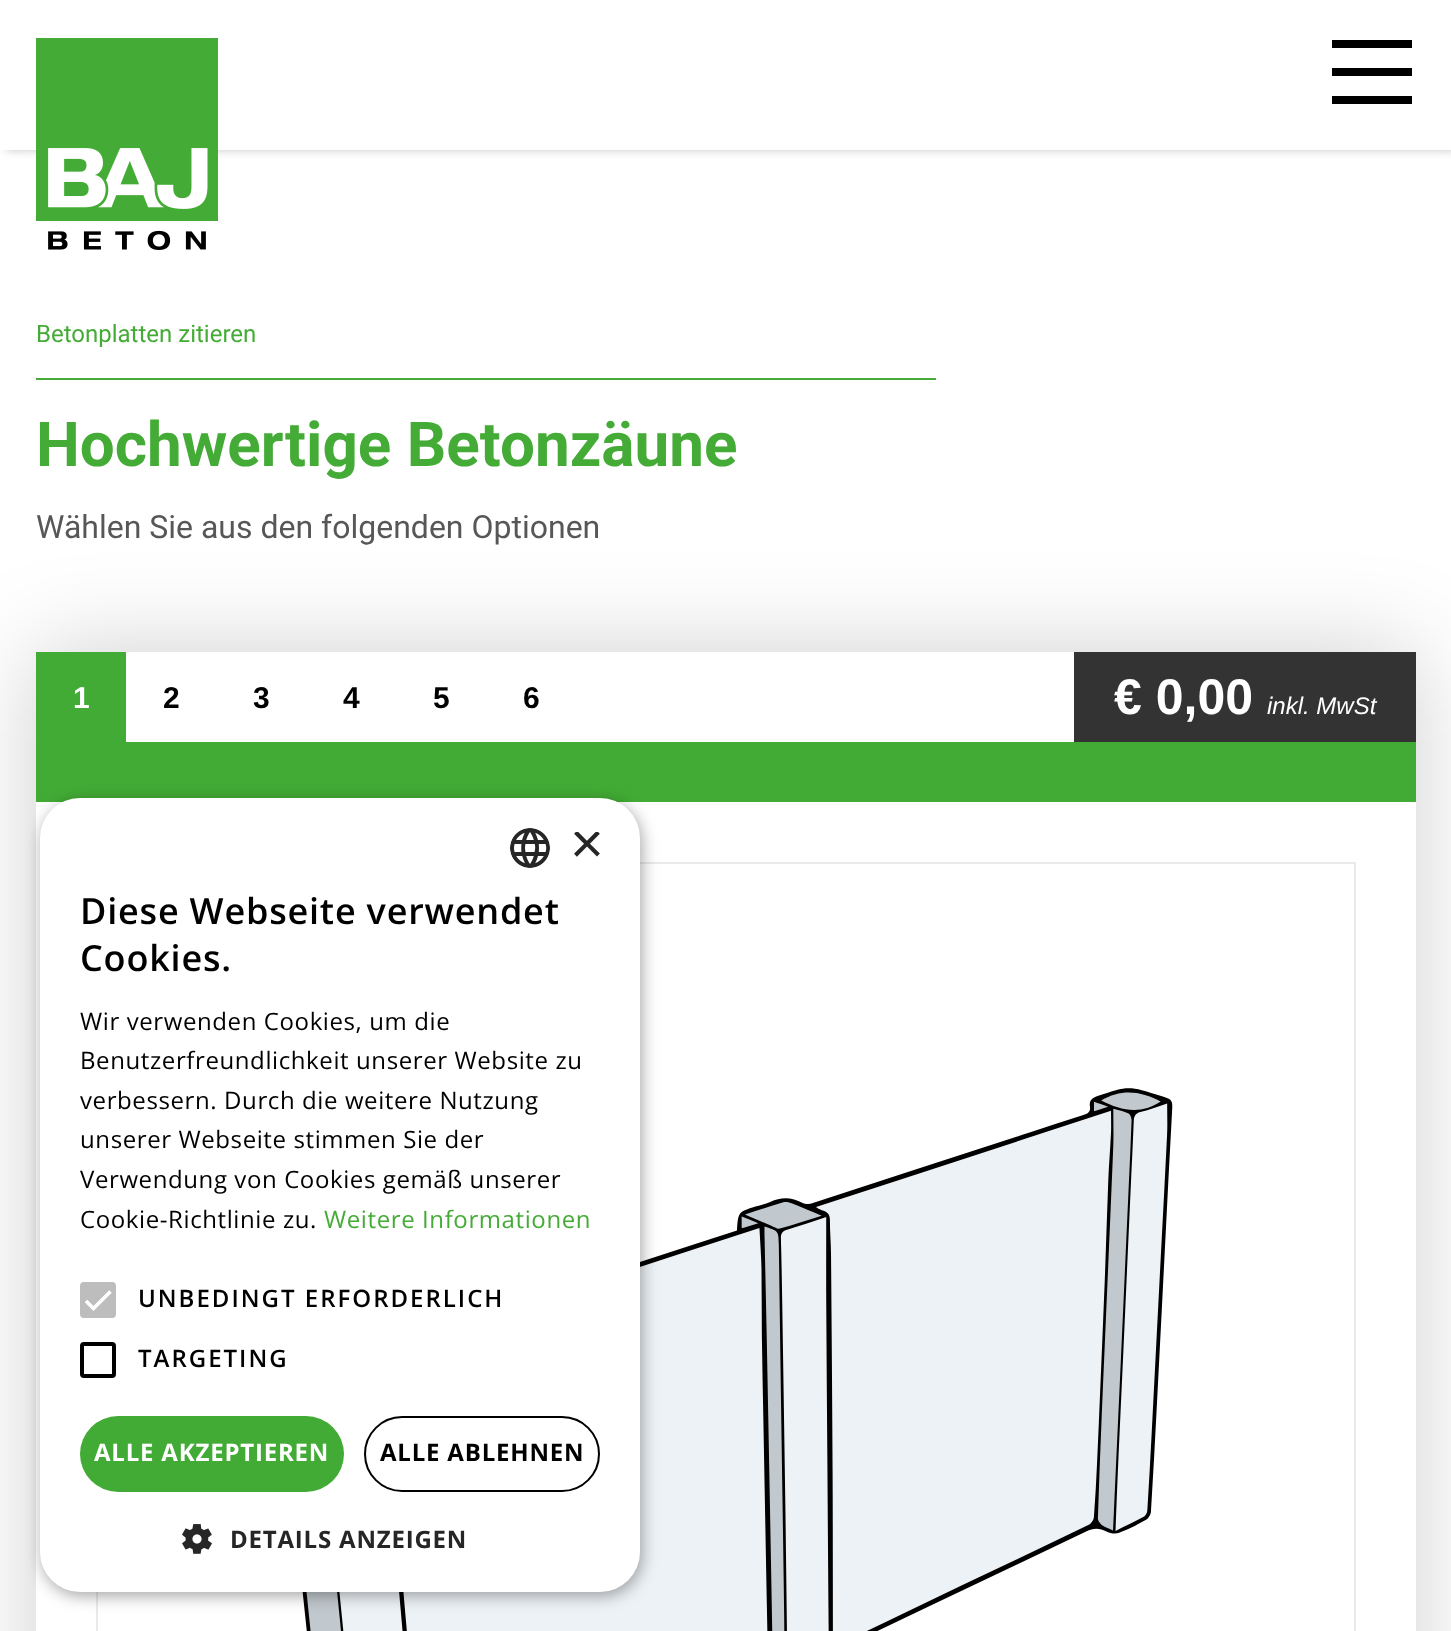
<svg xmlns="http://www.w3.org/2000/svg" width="1451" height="1631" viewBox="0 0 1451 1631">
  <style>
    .t1 { font: 24px Roboto; fill: #44ac36; }
    .t2 { font: bold 62px Roboto; fill: #44ac36; }
    .t3 { font: 32px Roboto; fill: #575757; }
    .t4 { font: bold 30px Liberation Sans; fill: #fff; }
    .t5 { font: bold 30px Liberation Sans; fill: #000; }
    .t6 { font: bold 50px Liberation Sans; fill: #fff; }
    .t7 { font: italic 24px Liberation Sans; fill: #fff; }
    .t8 { font: 58px Liberation Sans; fill: #262626; }
    .t9 { font: 600 36px Open Sans; letter-spacing: 0.8px; fill: #000; }
    .t10 { font: 24px Open Sans; letter-spacing: 0.6px; fill: #000; }
    .t11 { font: 24px Open Sans; letter-spacing: 0.6px; fill: #44ac36; }
    .t12 { font: 600 24px Open Sans; letter-spacing: 2px; fill: #000; }
    .t13 { font: bold 24px Open Sans; letter-spacing: 0.8px; fill: #fff; }
    .t14 { font: bold 24px Open Sans; letter-spacing: 0.8px; fill: #000; }
    .t15 { font: bold 24px Open Sans; letter-spacing: 0.8px; fill: #262626; }
  </style>
  <defs>
    <clipPath id="clip1"><rect x="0" y="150" width="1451" height="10"/></clipPath>
    <clipPath id="clip2"><path d="M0 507H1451V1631H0ZM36 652H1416V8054H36Z" clip-rule="evenodd"/></clipPath>
    <clipPath id="clip3"><rect x="570" y="832" width="30" height="30"/></clipPath>
  </defs>
  <rect width="100%" height="100%" fill="#fff"/>
  <g clip-path="url(#clip1)">
    <rect x="6" y="0" width="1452" height="150" fill="#c5c5c5" filter="blur(5px)"/>
  </g>
  <image x="36" y="38" width="182" height="212" href="images/1.png"/>
  <rect x="1332" y="40" width="80" height="8" fill="#000"/>
  <rect x="1332" y="68" width="80" height="8" fill="#000"/>
  <rect x="1332" y="96" width="80" height="8" fill="#000"/>
  <rect x="36" y="378" width="900" height="2" fill="#44ac36"/>
  <text x="36" y="342" class="t1">Betonplatten zitieren</text>
  <text x="36" y="466" class="t2">Hochwertige Betonzäune</text>
  <g clip-path="url(#clip2)">
    <rect x="36" y="652" width="1380" height="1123" fill="#00010130" filter="blur(48px)"/>
  </g>
  <text x="36" y="538" class="t3">Wählen Sie aus den folgenden Optionen</text>
  <rect x="36" y="652" width="90" height="90" fill="#42ab35"/>
  <text x="73" y="708" class="t4">1</text>
  <text x="163" y="708" class="t5">2</text>
  <text x="253" y="708" class="t5">3</text>
  <text x="343" y="708" class="t5">4</text>
  <text x="433" y="708" class="t5">5</text>
  <text x="523" y="708" class="t5">6</text>
  <rect x="1074" y="652" width="342" height="90" fill="#333"/>
  <text x="1114" y="714" class="t6">€ 0,00</text>
  <text x="1267" y="714" class="t7">inkl. MwSt</text>
  <rect x="36" y="742" width="1380" height="60" fill="#42ab35"/>
  <rect x="97" y="863" width="1258" height="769" fill="none" stroke="#eaeaea" stroke-width="2"/>
  <image x="302" y="1088" width="871" height="543" href="images/2.png"/>
  <rect x="42" y="802" width="600" height="794" rx="40" fill="#00000059" filter="blur(8px)"/>
  <rect x="40" y="798" width="600" height="794" rx="40" fill="#fff"/>
  <image x="510" y="828" width="40" height="40" href="images/3.png"/>
  <g clip-path="url(#clip3)">
    <text x="570" y="863" class="t8">×</text>
  </g>
  <text x="80" y="924" class="t9">Diese Webseite verwendet</text>
  <text x="80" y="971" class="t9">Cookies.</text>
  <text x="80" y="1030" class="t10">Wir verwenden Cookies, um die</text>
  <text x="80" y="1069" class="t10">Benutzerfreundlichkeit unserer Website zu</text>
  <text x="80" y="1109" class="t10">verbessern. Durch die weitere Nutzung</text>
  <text x="80" y="1148" class="t10">unserer Webseite stimmen Sie der</text>
  <text x="80" y="1188" class="t10">Verwendung von Cookies gemäß unserer</text>
  <text x="80" y="1228" class="t10">Cookie-Richtlinie zu.</text>
  <text x="324" y="1228" class="t11">Weitere Informationen</text>
  <rect x="80" y="1282" width="36" height="36" rx="4" fill="#bdbdbd"/>
  <path d="M86 1301L93.5 1308.5L110.5 1291.5" fill="none" stroke="#fff" stroke-width="3.6"/>
  <text x="138" y="1307" class="t12">UNBEDINGT ERFORDERLICH</text>
  <rect x="82" y="1344" width="32" height="32" rx="2" fill="none" stroke="#000" stroke-width="4"/>
  <text x="138" y="1367" class="t12">TARGETING</text>
  <rect x="80" y="1416" width="264" height="76" rx="38" fill="#42ab35"/>
  <text x="94" y="1461" class="t13">ALLE AKZEPTIEREN</text>
  <rect x="365" y="1417" width="234" height="74" rx="37" fill="none" stroke="#000" stroke-width="2"/>
  <text x="380" y="1461" class="t14">ALLE ABLEHNEN</text>
  <image x="182" y="1524" width="30" height="30" href="images/4.png"/>
  <text x="230" y="1548" class="t15">DETAILS ANZEIGEN</text>
</svg>
